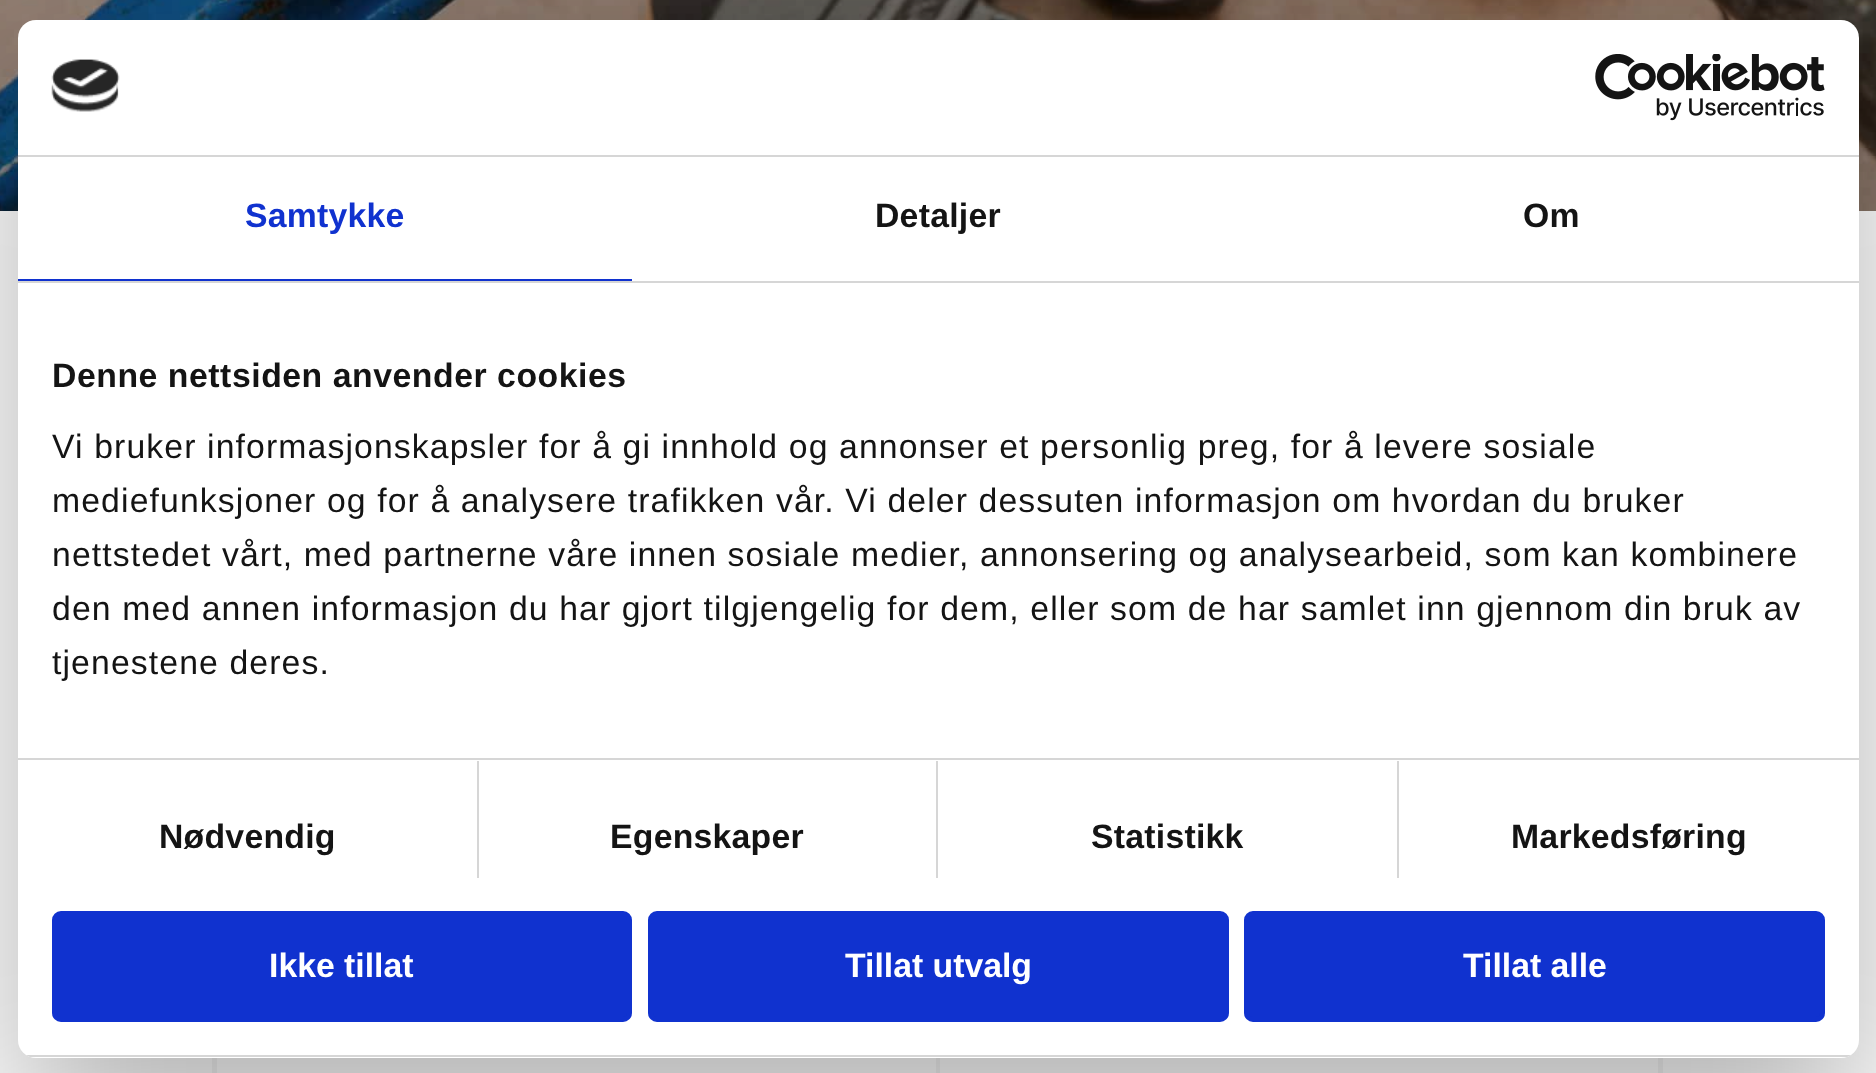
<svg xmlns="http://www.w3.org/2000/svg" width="1876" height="1073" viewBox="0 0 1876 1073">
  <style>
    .t1 { font: bold 33.75px Liberation Sans; letter-spacing: 0.25px; fill: #1032cf; }
    .t2 { font: bold 33.75px Liberation Sans; letter-spacing: 0.25px; fill: #141414; }
    .t3 { font: bold 33.75px Liberation Sans; letter-spacing: 0.55px; fill: #141414; }
    .t4 { font: 33.75px Liberation Sans; letter-spacing: 1.12px; fill: #141414; }
    .t5 { font: bold 33.75px Liberation Sans; fill: #fff; }
  </style>
  <defs>
    <clipPath id="clip1"><rect x="18" y="20" width="1841" height="1038" rx="18"/></clipPath>
  </defs>
  <rect width="100%" height="100%" fill="#fff"/>
  <image x="0" y="0" width="1876" height="211" href="images/1.png"/>
  <rect x="936" y="1058" width="4" height="15" fill="#f5f5f5"/>
  <rect x="212" y="1058" width="5" height="15" fill="#f5f5f5"/>
  <rect x="1658" y="1058" width="5" height="15" fill="#f5f5f5"/>
  <rect x="18" y="92" width="1841" height="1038" rx="18" fill="#0000004d" filter="blur(76.5px)"/>
  <rect x="18" y="20" width="1841" height="1038" rx="18" fill="#fff"/>
  <rect x="18" y="155" width="1841" height="2" fill="#d6d6d6"/>
  <image x="51" y="59" width="69" height="53" href="images/2.png"/>
  <image x="1595" y="54" width="230" height="67" href="images/3.png"/>
  <rect x="18" y="281" width="1841" height="2" fill="#d6d6d6"/>
  <rect x="18" y="279" width="614" height="2" fill="#1032cf"/>
  <text x="245" y="227" class="t1">Samtykke</text>
  <text x="875" y="227" class="t2">Detaljer</text>
  <text x="1523" y="227" class="t2">Om</text>
  <rect x="18" y="758" width="1841" height="2" fill="#d6d6d6"/>
  <text x="52" y="387" class="t3">Denne nettsiden anvender cookies</text>
  <text x="52" y="458" class="t4">Vi bruker informasjonskapsler for å gi innhold og annonser et personlig preg, for å levere sosiale</text>
  <text x="52" y="512" class="t4">mediefunksjoner og for å analysere trafikken vår. Vi deler dessuten informasjon om hvordan du bruker</text>
  <text x="52" y="566" class="t4">nettstedet vårt, med partnerne våre innen sosiale medier, annonsering og analysearbeid, som kan kombinere</text>
  <text x="52" y="620" class="t4">den med annen informasjon du har gjort tilgjengelig for dem, eller som de har samlet inn gjennom din bruk av</text>
  <text x="52" y="674" class="t4">tjenestene deres.</text>
  <rect x="477" y="761" width="2" height="117" fill="#d6d6d6"/>
  <text x="159" y="848" class="t2">Nødvendig</text>
  <rect x="936" y="761" width="2" height="117" fill="#d6d6d6"/>
  <text x="610" y="848" class="t2">Egenskaper</text>
  <rect x="1397" y="761" width="2" height="117" fill="#d6d6d6"/>
  <text x="1091" y="848" class="t2">Statistikk</text>
  <text x="1511" y="848" class="t2">Markedsføring</text>
  <g clip-path="url(#clip1)">
    <rect x="18" y="1055" width="1841" height="2" fill="#d6d6d6"/>
  </g>
  <rect x="54.5" y="913.5" width="575" height="106" rx="6.5" fill="#1032cf" stroke="#1032cf" stroke-width="5"/>
  <text x="269" y="977" class="t5">Ikke tillat</text>
  <rect x="650.5" y="913.5" width="576" height="106" rx="6.5" fill="#1032cf" stroke="#1032cf" stroke-width="5"/>
  <text x="845" y="977" class="t5">Tillat utvalg</text>
  <rect x="1246.5" y="913.5" width="576" height="106" rx="6.5" fill="#1032cf" stroke="#1032cf" stroke-width="5"/>
  <text x="1463" y="977" class="t5">Tillat alle</text>
</svg>
